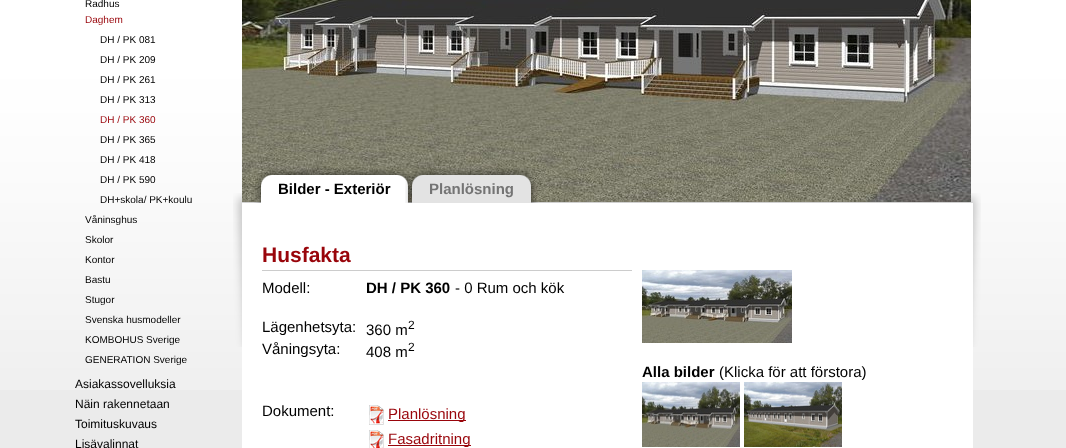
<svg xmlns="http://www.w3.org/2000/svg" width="1066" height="448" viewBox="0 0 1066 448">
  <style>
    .t1 { font: 10px Liberation Sans; fill: #000; }
    .t2 { font: 10px Liberation Sans; fill: #99050b; }
    .t3 { font: 12px Liberation Sans; fill: #000; }
    .t4 { font: bold 15px Liberation Sans; fill: #000; }
    .t5 { font: bold 15px Liberation Sans; fill: #747474; }
    .t6 { font: bold 21px Liberation Sans; fill: #99050b; }
    .t7 { font: 15px Liberation Sans; fill: #000; }
    .t8 { font: 15px Liberation Sans; fill: #99050b; }
  </style>
  <rect width="100%" height="100%" fill="#ebebeb"/>
  <image x="0" y="0" width="1066" height="390" href="images/1.png"/>
  <text x="85" y="7" class="t1">Radhus</text>
  <text x="85" y="23" class="t2">Daghem</text>
  <text x="100" y="43" class="t1">DH / PK 081</text>
  <text x="100" y="63" class="t1">DH / PK 209</text>
  <text x="100" y="83" class="t1">DH / PK 261</text>
  <text x="100" y="103" class="t1">DH / PK 313</text>
  <text x="100" y="123" class="t2">DH / PK 360</text>
  <text x="100" y="143" class="t1">DH / PK 365</text>
  <text x="100" y="163" class="t1">DH / PK 418</text>
  <text x="100" y="183" class="t1">DH / PK 590</text>
  <text x="100" y="203" class="t1">DH+skola/ PK+koulu</text>
  <text x="85" y="223" class="t1">Våninsghus</text>
  <text x="85" y="243" class="t1">Skolor</text>
  <text x="85" y="263" class="t1">Kontor</text>
  <text x="85" y="283" class="t1">Bastu</text>
  <text x="85" y="303" class="t1">Stugor</text>
  <text x="85" y="323" class="t1">Svenska husmodeller</text>
  <text x="85" y="343" class="t1">KOMBOHUS Sverige</text>
  <text x="85" y="363" class="t1">GENERATION Sverige</text>
  <text x="75" y="388" class="t3">Asiakassovelluksia</text>
  <text x="75" y="408" class="t3">Näin rakennetaan</text>
  <text x="75" y="428" class="t3">Toimituskuvaus</text>
  <text x="75" y="448" class="t3">Lisävalinnat</text>
  <image x="233" y="193" width="748" height="154" href="images/9.png"/>
  <image x="242" y="0" width="729" height="202" href="images/2.png"/>
  <image x="254" y="168" width="24" height="35" href="images/3.png"/>
  <image x="278" y="168" width="113" height="35" href="images/4.png"/>
  <text x="278" y="194" class="t4">Bilder - Exteriör</text>
  <image x="391" y="168" width="23" height="35" href="images/5.png"/>
  <image x="405" y="168" width="24" height="35" href="images/6.png"/>
  <image x="429" y="168" width="85" height="35" href="images/7.png"/>
  <text x="429" y="194" class="t5">Planlösning</text>
  <image x="514" y="168" width="24" height="35" href="images/8.png"/>
  <rect x="242" y="203" width="731" height="245" fill="#fff"/>
  <text x="262" y="262" class="t6">Husfakta</text>
  <rect x="262" y="270" width="370" height="1" fill="#ccc"/>
  <text x="262" y="293" class="t7">Modell:</text>
  <text x="366" y="293" class="t4">DH / PK 360</text>
  <text x="455" y="293" class="t7">- 0 Rum och kök</text>
  <text x="262" y="332" class="t7">Lägenhetsyta:</text>
  <text x="366" y="335" class="t7">360 m</text>
  <text x="408" y="329" class="t3">2</text>
  <text x="262" y="354" class="t7">Våningsyta:</text>
  <text x="366" y="357" class="t7">408 m</text>
  <text x="408" y="351" class="t3">2</text>
  <text x="262" y="416" class="t7">Dokument:</text>
  <image x="369" y="405" width="15" height="20" href="images/10.png"/>
  <rect x="388" y="420" width="78" height="1" fill="#99050b"/>
  <text x="388" y="419" class="t8">Planlösning</text>
  <image x="369" y="430" width="15" height="18" href="images/11.png"/>
  <rect x="388" y="445" width="83" height="1" fill="#99050b"/>
  <text x="388" y="444" class="t8">Fasadritning</text>
  <image x="642" y="270" width="150" height="73" href="images/12.png"/>
  <text x="642" y="377" class="t4">Alla bilder</text>
  <text x="719" y="377" class="t7">(Klicka för att förstora)</text>
  <image x="642" y="382" width="98" height="65" href="images/13.png"/>
  <image x="744" y="382" width="98" height="65" href="images/14.png"/>
</svg>
